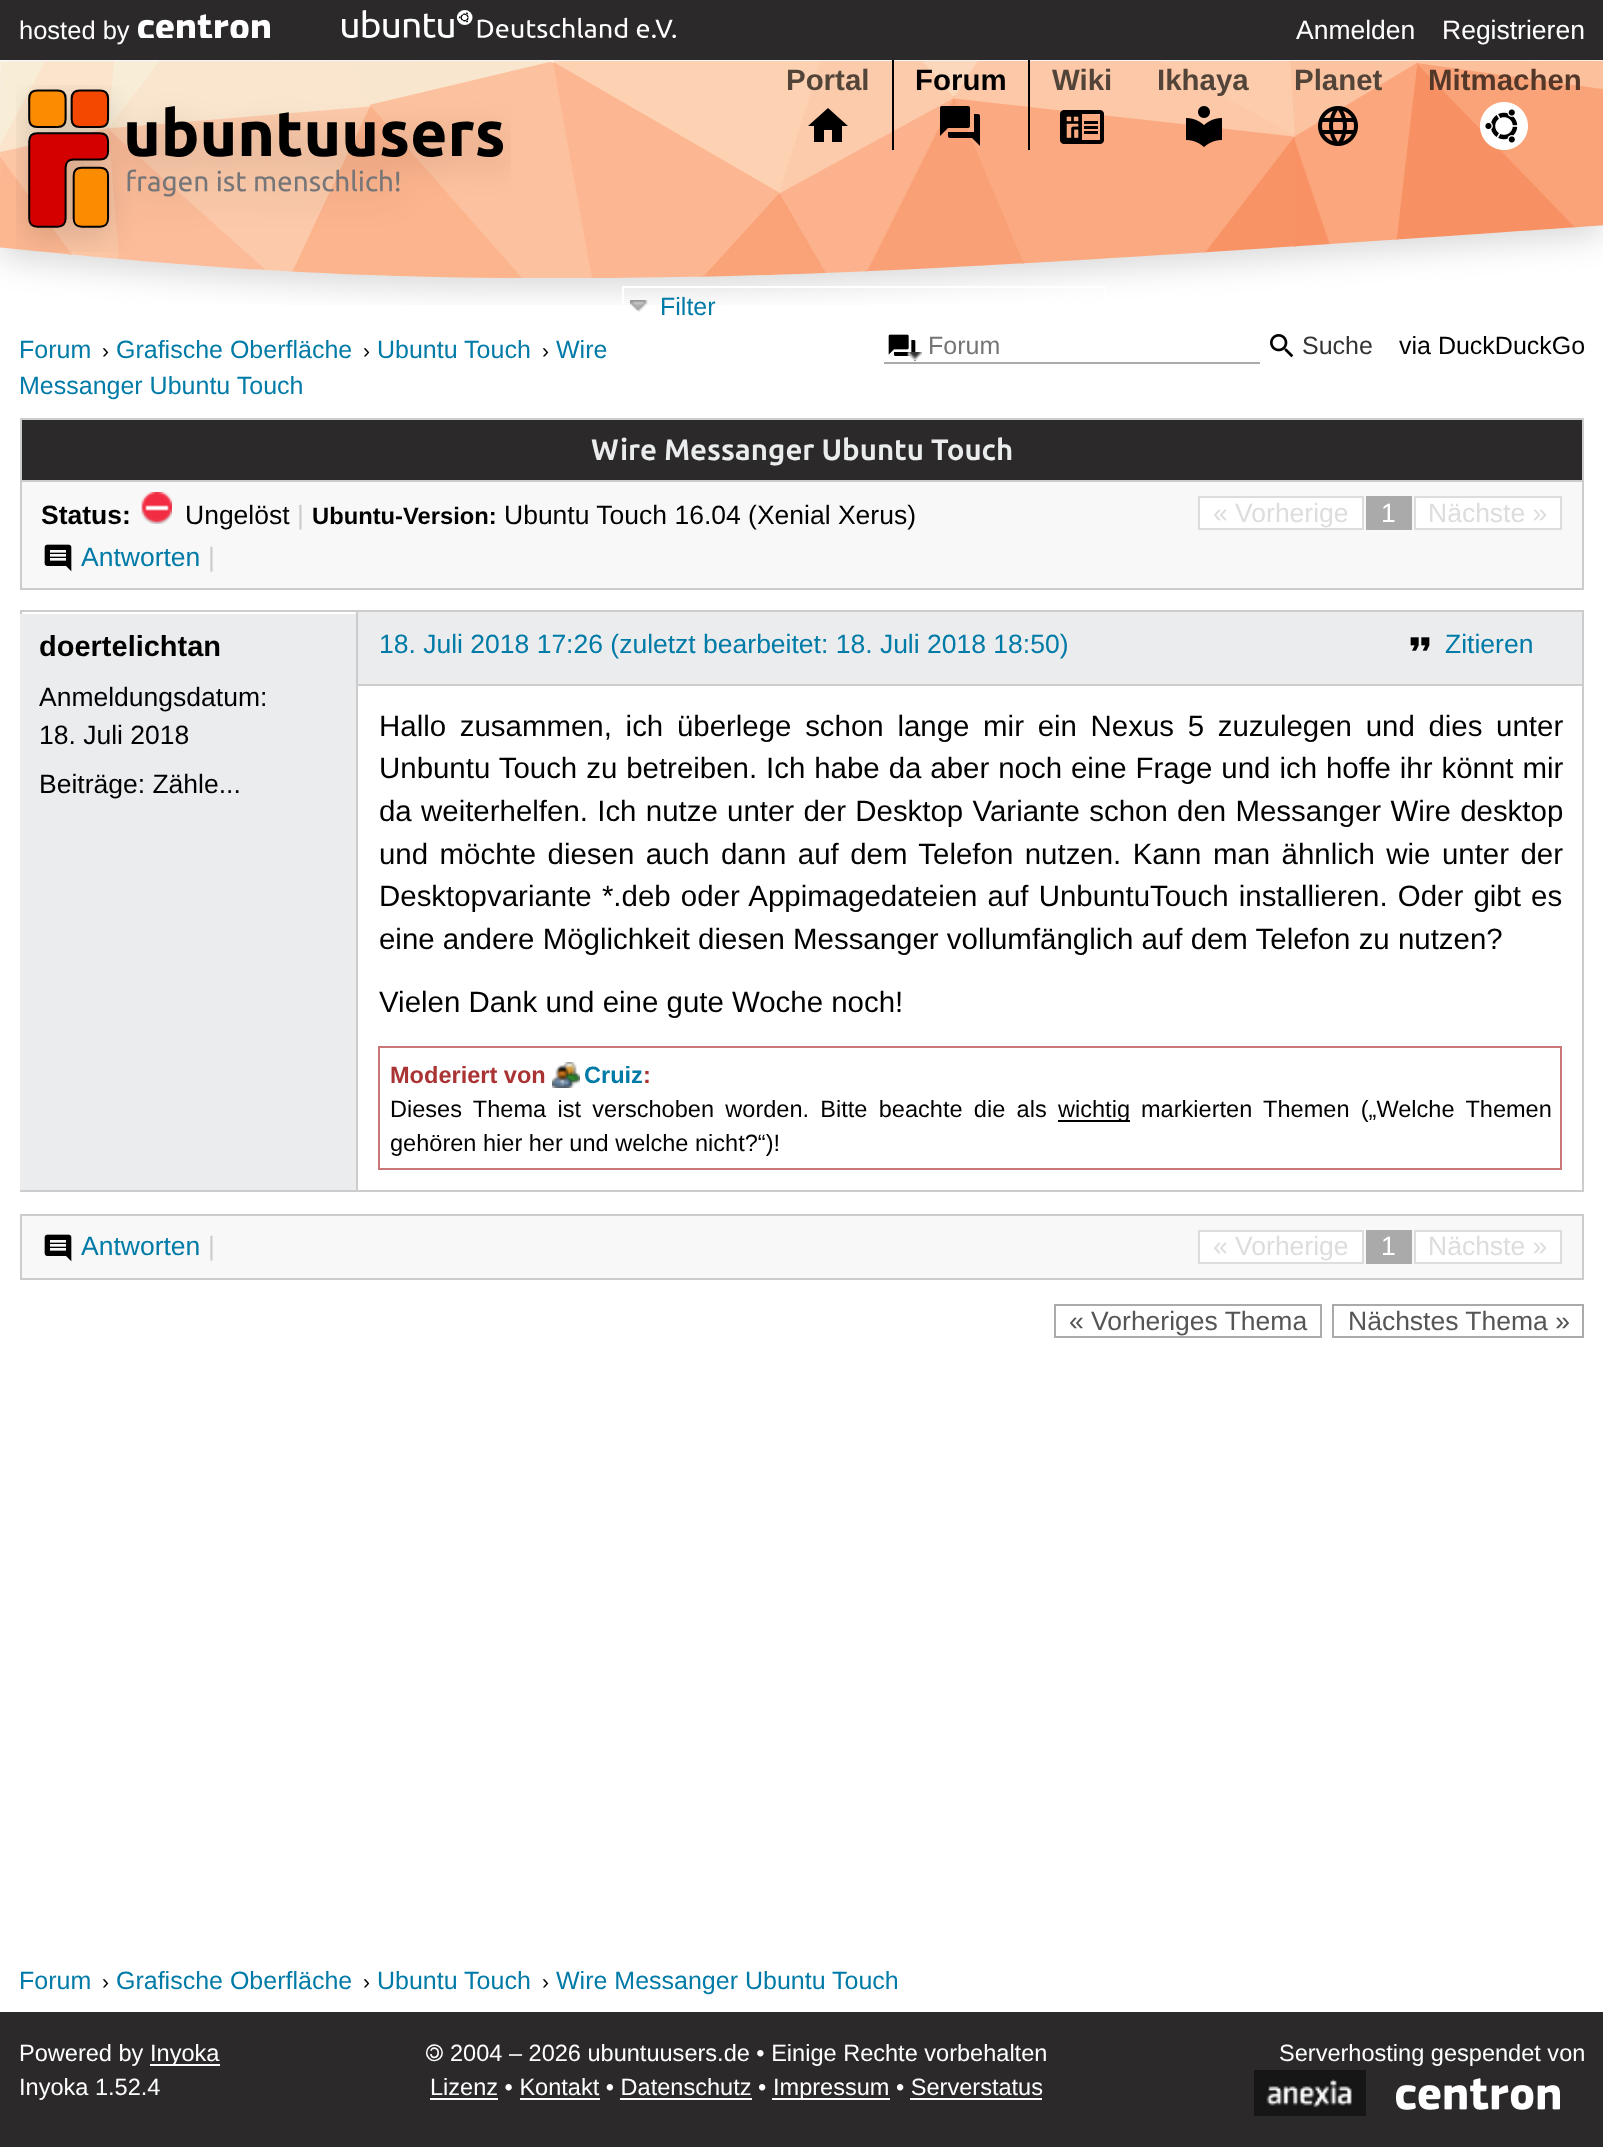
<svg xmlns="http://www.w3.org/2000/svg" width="1603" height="2147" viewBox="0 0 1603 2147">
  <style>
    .t1 { font: 25.5px Liberation Sans; fill: #fff; }
    .t2 { font: 26.5px Liberation Sans; fill: #fff; }
    .t3 { font: bold 29.45px Liberation Sans; fill: #534439; }
    .t4 { font: bold 29.45px Liberation Sans; fill: #000; }
    .t5 { font: bold 29.45px Liberation Sans; fill: #53382a; }
    .t6 { font: 25px Liberation Sans; fill: #007aa6; }
    .t7 { font: 21px Liberation Sans; fill: #000; }
    .t8 { font: 25px Liberation Sans; fill: #757575; }
    .t9 { font: 25px Liberation Sans; fill: #333; }
    .t10 { font: 25px Liberation Sans; fill: #000; }
    .t11 { font: bold 29.45px Ubuntu; fill: #eaecee; }
    .t12 { font: bold 26.5px Liberation Sans; fill: #000; }
    .t13 { font: 26.5px Liberation Sans; fill: #000; }
    .t14 { font: 26.5px Liberation Sans; fill: #ccc; }
    .t15 { font: bold 23.75px Liberation Sans; fill: #000; }
    .t16 { font: 26.5px Liberation Sans; fill: #ddd; }
    .t17 { font: 26.5px Liberation Sans; fill: #007aa6; }
    .t18 { font: bold 29px Liberation Sans; fill: #000; }
    .t19 { font: 29.45px Liberation Sans; fill: #000; }
    .t20 { font: bold 23.55px Liberation Sans; fill: #a33; }
    .t21 { font: bold 23.55px Liberation Sans; fill: #007aa6; }
    .t22 { font: 23.55px Liberation Sans; fill: #000; }
    .t23 { font: 26.5px Liberation Sans; fill: #555; }
    .t24 { font: 23.55px Liberation Sans; fill: #fff; }
    .t25 { font: 23.55px FreeSans; fill: #fff; }
  </style>
  <rect width="100%" height="100%" fill="#fff"/>
  <rect x="0" y="0" width="1603" height="60" fill="#2b2929"/>
  <text x="19" y="39" class="t1">hosted by</text>
  <image x="138" y="14" width="132" height="24" href="images/1.png"/>
  <image x="342" y="10" width="334" height="28" href="images/2.png"/>
  <text x="1296" y="39" class="t2">Anmelden</text>
  <text x="1442" y="39" class="t2">Registrieren</text>
  <image x="0" y="60" width="1603" height="245" href="images/3.png"/>
  <image x="16" y="85" width="495" height="167" href="images/4.png"/>
  <text x="786" y="90" class="t3">Portal</text>
  <path d="M824 142V130H832V142H842V126H848L828 108L808 126H814V142Z" fill="#000"/>
  <rect x="1028" y="60" width="2" height="90" fill="#000"/>
  <rect x="892" y="60" width="2" height="90" fill="#000"/>
  <text x="915" y="90" class="t4">Forum</text>
  <image x="940" y="106" width="40" height="40" href="images/5.png"/>
  <text x="1052" y="90" class="t3">Wiki</text>
  <image x="1060" y="110" width="44" height="34" href="images/6.png"/>
  <text x="1157" y="90" class="t3">Ikhaya</text>
  <image x="1186" y="106" width="36" height="41" href="images/7.png"/>
  <text x="1294" y="90" class="t3">Planet</text>
  <image x="1318" y="106" width="40" height="40" href="images/8.png"/>
  <text x="1428" y="90" class="t5">Mitmachen</text>
  <image x="1480" y="102" width="48" height="48" href="images/9.png"/>
  <rect x="623" y="287" width="482" height="44" fill="none" stroke="#fff" stroke-width="2"/>
  <image x="630" y="300" width="18" height="12" href="images/10.png"/>
  <text x="660" y="315" class="t6">Filter</text>
  <text x="19" y="358" class="t6">Forum</text>
  <text x="102" y="358" class="t7">›</text>
  <text x="116" y="358" class="t6">Grafische Oberfläche</text>
  <text x="363" y="358" class="t7">›</text>
  <text x="377" y="358" class="t6">Ubuntu Touch</text>
  <text x="542" y="358" class="t7">›</text>
  <text x="556" y="358" class="t6">Wire</text>
  <text x="19" y="394" class="t6">Messanger Ubuntu Touch</text>
  <image x="888" y="334" width="28" height="28" href="images/11.png"/>
  <rect x="884" y="362" width="376" height="2" fill="#aaa"/>
  <text x="928" y="354" class="t8">Forum</text>
  <image x="1270" y="334" width="24" height="24" href="images/12.png"/>
  <text x="1302" y="354" class="t9">Suche</text>
  <text x="1399" y="354" class="t10">via DuckDuckGo</text>
  <image x="907" y="352" width="15" height="8" href="images/13.png"/>
  <rect x="22" y="482" width="1560" height="106" fill="#f8f8f8"/>
  <rect x="21" y="419" width="1562" height="170" fill="none" stroke="#ccc" stroke-width="2"/>
  <rect x="22" y="420" width="1560" height="60" fill="#2b2929"/>
  <rect x="22" y="480" width="1560" height="2" fill="#ccc"/>
  <text x="591" y="460" class="t11">Wire Messanger Ubuntu Touch</text>
  <text x="41" y="524" class="t12">Status:</text>
  <image x="141" y="492" width="31" height="32" href="images/14.png"/>
  <text x="185" y="524" class="t13">Ungelöst</text>
  <text x="297" y="524" class="t14">|</text>
  <text x="312" y="524" class="t15">Ubuntu-Version:</text>
  <text x="504" y="524" class="t13">Ubuntu Touch 16.04 (Xenial Xerus)</text>
  <rect x="1199" y="497" width="164" height="32" fill="#fff" stroke="#ddd" stroke-width="2"/>
  <text x="1213" y="522" class="t16">« Vorherige</text>
  <rect x="1366" y="496" width="46" height="34" fill="#aaa"/>
  <text x="1381" y="522" class="t2">1</text>
  <rect x="1415" y="497" width="146" height="32" fill="#fff" stroke="#ddd" stroke-width="2"/>
  <text x="1428" y="522" class="t16">Nächste »</text>
  <image x="44" y="544" width="28" height="28" href="images/15.png"/>
  <text x="81" y="566" class="t17">Antworten</text>
  <text x="208" y="566" class="t14">|</text>
  <rect x="20" y="610" width="1564" height="2" fill="#ccc"/>
  <rect x="1582" y="610" width="2" height="582" fill="#ccc"/>
  <rect x="20" y="1190" width="1564" height="2" fill="#ccc"/>
  <rect x="20" y="610" width="2" height="582" fill="#ccc"/>
  <rect x="356" y="610" width="2" height="582" fill="#ccc"/>
  <rect x="20" y="614" width="336" height="576" fill="#eaecee"/>
  <text x="39" y="656" class="t18">doertelichtan</text>
  <text x="39" y="706" class="t13">Anmeldungsdatum:</text>
  <text x="39" y="744" class="t13">18. Juli 2018</text>
  <text x="39" y="793" class="t13">Beiträge: Zähle...</text>
  <rect x="358" y="612" width="1224" height="72" fill="#eaecee"/>
  <rect x="358" y="684" width="1224" height="2" fill="#ccc"/>
  <text x="379" y="653" class="t17">18. Juli 2018 17:26 (zuletzt bearbeitet: 18. Juli 2018 18:50)</text>
  <image x="1410" y="637" width="20" height="14" href="images/16.png"/>
  <text x="1445" y="653" class="t17">Zitieren</text>
  <text x="379" y="736" word-spacing="5.5" class="t19">Hallo zusammen, ich überlege schon lange mir ein Nexus 5 zuzulegen und dies unter</text>
  <text x="379" y="778" word-spacing="0.75" class="t19">Unbuntu Touch zu betreiben. Ich habe da aber noch eine Frage und ich hoffe ihr könnt mir</text>
  <text x="379" y="821" word-spacing="1.1" class="t19">da weiterhelfen. Ich nutze unter der Desktop Variante schon den Messanger Wire desktop</text>
  <text x="379" y="864" word-spacing="3.25" class="t19">und möchte diesen auch dann auf dem Telefon nutzen. Kann man ähnlich wie unter der</text>
  <text x="379" y="906" word-spacing="2" class="t19">Desktopvariante *.deb oder Appimagedateien auf UnbuntuTouch installieren. Oder gibt es</text>
  <text x="379" y="949" class="t19">eine andere Möglichkeit diesen Messanger vollumfänglich auf dem Telefon zu nutzen?</text>
  <text x="379" y="1012" class="t19">Vielen Dank und eine gute Woche noch!</text>
  <rect x="379" y="1047" width="1182" height="122" fill="none" stroke="#c77" stroke-width="2"/>
  <text x="390" y="1083" class="t20">Moderiert von</text>
  <image x="552" y="1062" width="28" height="26" href="images/17.png"/>
  <text x="584" y="1083" class="t21">Cruiz</text>
  <text x="643" y="1083" class="t20">:</text>
  <text x="390" y="1117" word-spacing="4.75" class="t22">Dieses Thema ist verschoben worden. Bitte beachte die als</text>
  <rect x="1058" y="1120" width="72" height="2" fill="#000"/>
  <text x="1058" y="1117" class="t22">wichtig</text>
  <text x="1141" y="1117" word-spacing="4.75" class="t22">markierten Themen („Welche Themen</text>
  <text x="390" y="1151" class="t22">gehören hier her und welche nicht?“)!</text>
  <rect x="21" y="1215" width="1562" height="64" fill="#f8f8f8" stroke="#ccc" stroke-width="2"/>
  <image x="44" y="1234" width="28" height="28" href="images/15.png"/>
  <text x="81" y="1255" class="t17">Antworten</text>
  <text x="208" y="1255" class="t14">|</text>
  <rect x="1199" y="1231" width="164" height="32" fill="#fff" stroke="#ddd" stroke-width="2"/>
  <text x="1213" y="1255" class="t16">« Vorherige</text>
  <rect x="1366" y="1230" width="46" height="34" fill="#aaa"/>
  <text x="1381" y="1255" class="t2">1</text>
  <rect x="1415" y="1231" width="146" height="32" fill="#fff" stroke="#ddd" stroke-width="2"/>
  <text x="1428" y="1255" class="t16">Nächste »</text>
  <rect x="1055" y="1305" width="266" height="32" fill="none" stroke="#aaa" stroke-width="2"/>
  <text x="1069" y="1330" class="t23">« Vorheriges Thema</text>
  <rect x="1333" y="1305" width="250" height="32" fill="none" stroke="#aaa" stroke-width="2"/>
  <text x="1348" y="1330" class="t23">Nächstes Thema »</text>
  <text x="19" y="1989" class="t6">Forum</text>
  <text x="102" y="1989" class="t7">›</text>
  <text x="116" y="1989" class="t6">Grafische Oberfläche</text>
  <text x="363" y="1989" class="t7">›</text>
  <text x="377" y="1989" class="t6">Ubuntu Touch</text>
  <text x="542" y="1989" class="t7">›</text>
  <text x="556" y="1989" class="t6">Wire Messanger Ubuntu Touch</text>
  <rect x="0" y="2012" width="1603" height="135" fill="#2b2929"/>
  <text x="19" y="2061" class="t24">Powered by</text>
  <rect x="150" y="2064" width="70" height="2" fill="#fff"/>
  <text x="150" y="2061" class="t24">Inyoka</text>
  <text x="19" y="2095" class="t24">Inyoka 1.52.4</text>
  <text x="425" y="2061" class="t25">🄯</text>
  <text x="450" y="2061" class="t24">2004 – 2026 ubuntuusers.de • Einige Rechte vorbehalten</text>
  <text x="430" y="2095" class="t24">Lizenz • Kontakt • Datenschutz •</text>
  <rect x="430" y="2098" width="68" height="2" fill="#fff"/>
  <rect x="772" y="2098" width="118" height="2" fill="#fff"/>
  <text x="773" y="2095" class="t24">Impressum • Serverstatus</text>
  <rect x="520" y="2098" width="80" height="2" fill="#fff"/>
  <rect x="620" y="2098" width="132" height="2" fill="#fff"/>
  <rect x="910" y="2098" width="132" height="2" fill="#fff"/>
  <text x="1279" y="2061" class="t24">Serverhosting gespendet von</text>
  <rect x="1266" y="2078" width="86" height="30" fill="#fff"/>
  <image x="1254" y="2070" width="112" height="46" href="images/18.png"/>
  <image x="1396" y="2078" width="164" height="32" href="images/19.png"/>
</svg>
